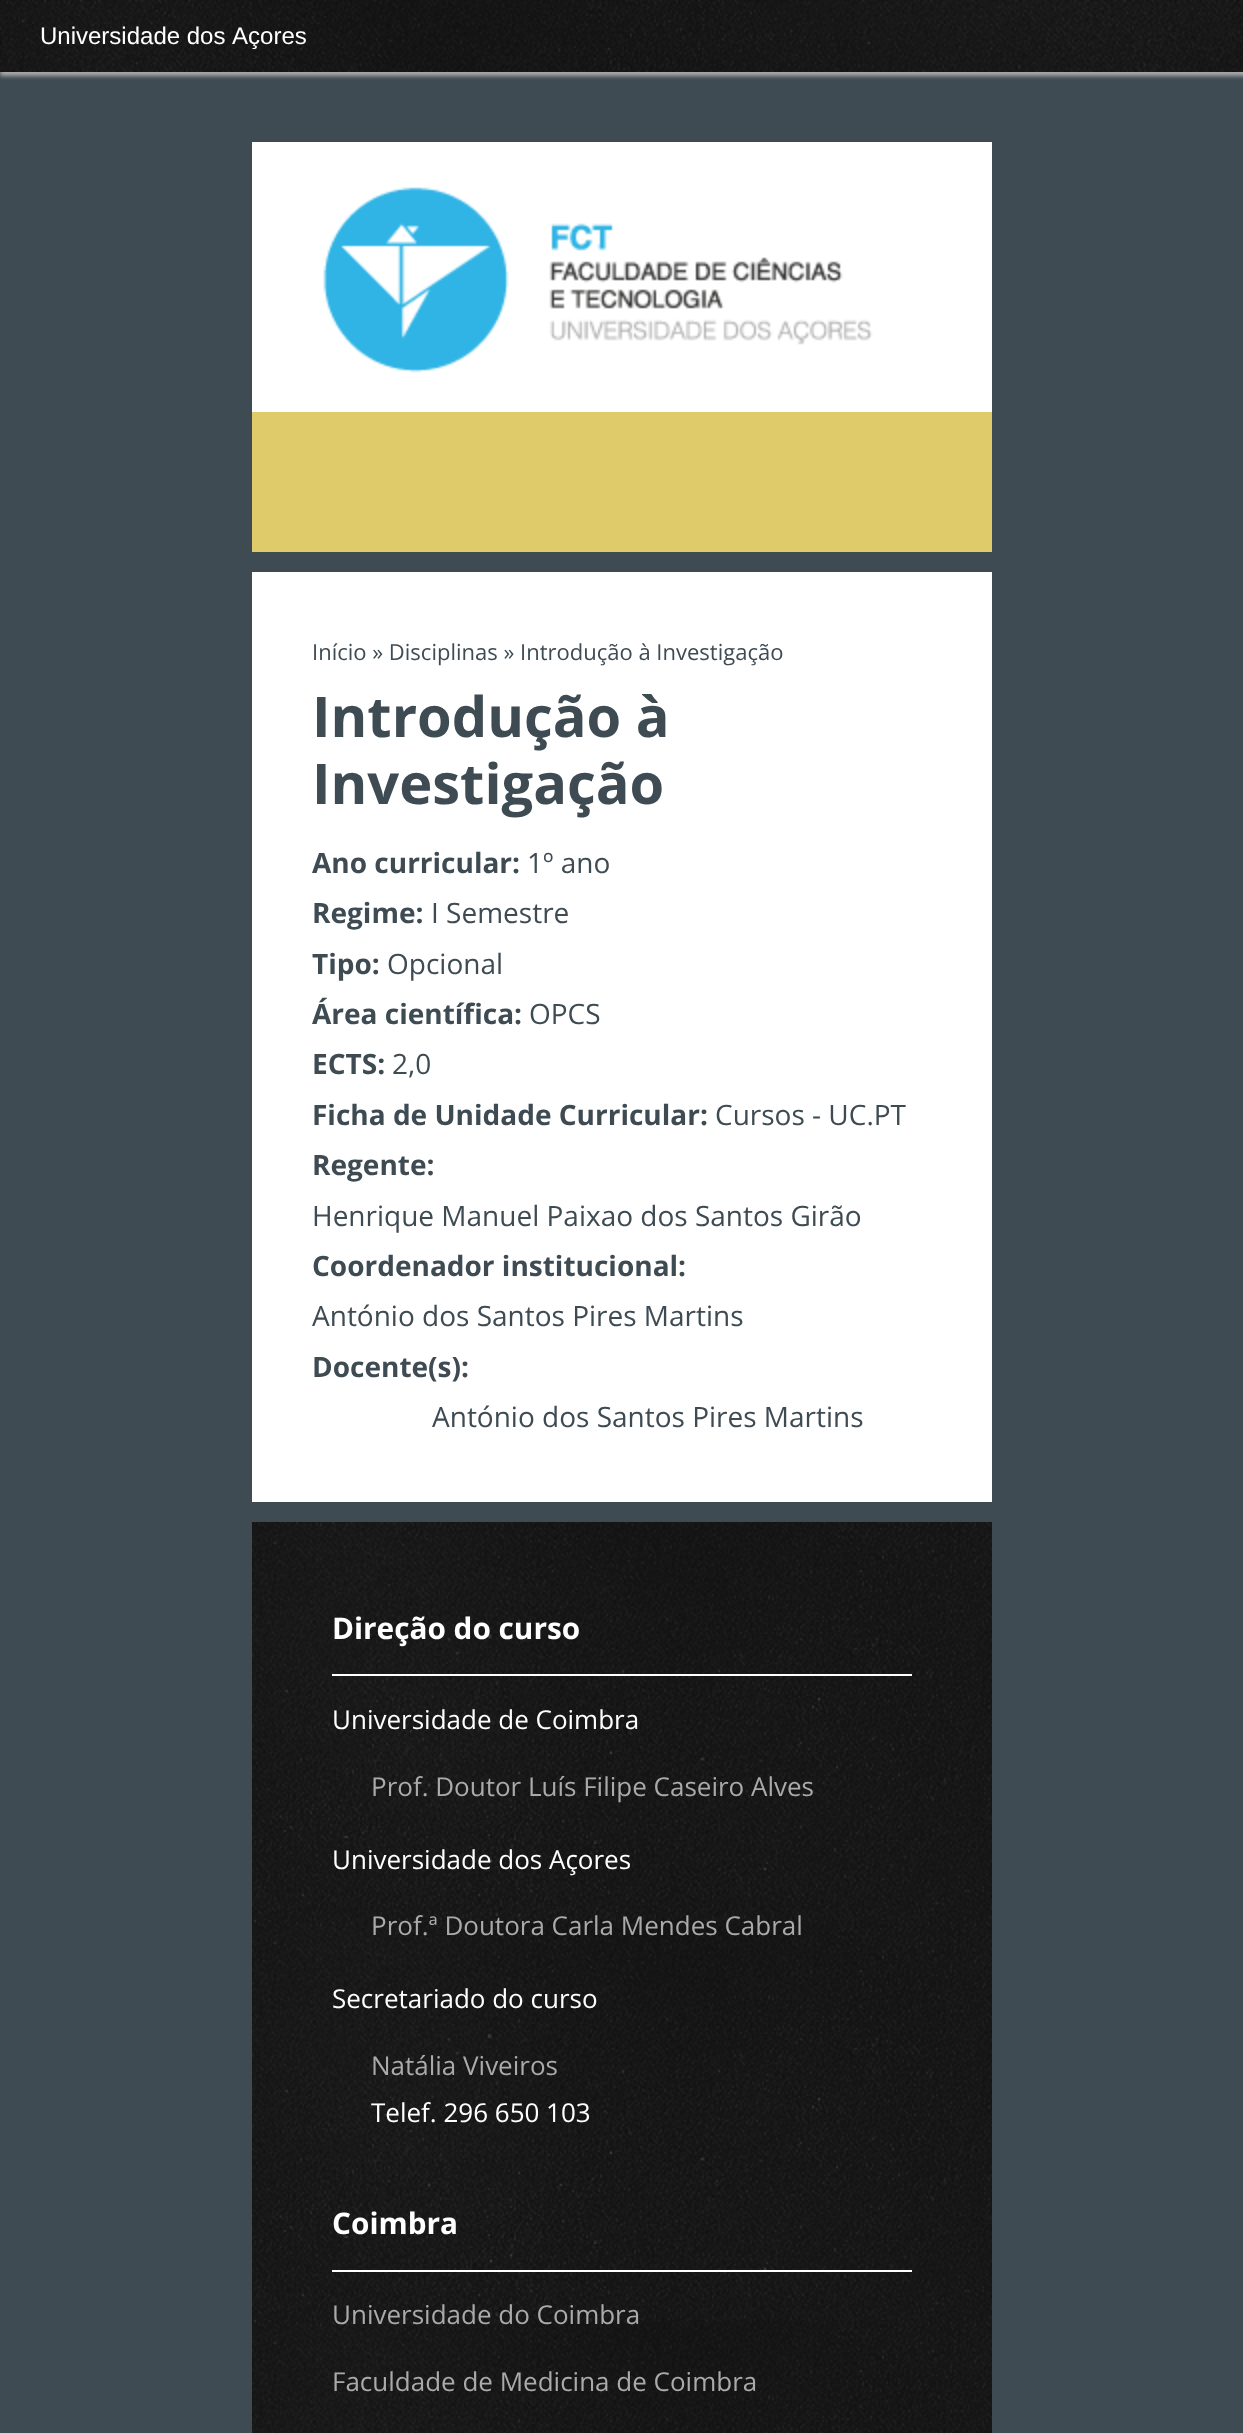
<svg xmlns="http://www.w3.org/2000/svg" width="1243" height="2433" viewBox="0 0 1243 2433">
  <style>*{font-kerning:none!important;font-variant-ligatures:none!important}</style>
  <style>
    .t1 { font: 24px Liberation Sans; fill: #fff; }
    .t2 { font: 22px Open Sans; fill: #3e4b53; }
    .t3 { font: bold 56px Open Sans; fill: #3e4b53; }
    .t4 { font: bold 28px Open Sans; fill: #3e4b53; }
    .t5 { font: 28px Open Sans; fill: #3e4b53; }
    .t6 { font: bold 29.75px Open Sans; fill: #fff; }
    .t7 { font: 26px Open Sans; fill: #fff; }
    .t8 { font: 26px Open Sans; fill: #aaa; }
  </style>
  <rect width="100%" height="100%" fill="#3e4b53"/>
  <rect x="0" y="0" width="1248" height="76" fill="#aaa" filter="blur(2px)"/>
  <rect x="0" y="0" width="1243" height="72" fill="#111"/>
  <image x="0" y="0" width="1243" height="72" href="images/1.png"/>
  <text x="40" y="44" class="t1">Universidade dos Açores</text>
  <rect x="252" y="142" width="740" height="270" fill="#fff"/>
  <image x="323" y="187" width="550" height="186" href="images/2.png"/>
  <rect x="252" y="412" width="740" height="140" fill="#dfcb6a"/>
  <rect x="252" y="572" width="740" height="930" fill="#fff"/>
  <text x="312" y="660" class="t2">Início » Disciplinas » Introdução à Investigação</text>
  <text x="312" y="737" class="t3">Introdução à</text>
  <text x="312" y="804" class="t3">Investigação</text>
  <text x="312" y="873" class="t4">Ano curricular:</text>
  <text x="527" y="873" class="t5">1º ano</text>
  <text x="312" y="923" class="t4">Regime:</text>
  <text x="431" y="923" class="t5">I Semestre</text>
  <text x="312" y="974" class="t4">Tipo:</text>
  <text x="387" y="974" class="t5">Opcional</text>
  <text x="312" y="1024" class="t4">Área científica:</text>
  <text x="529" y="1024" class="t5">OPCS</text>
  <text x="312" y="1074" class="t4">ECTS:</text>
  <text x="392" y="1074" class="t5">2,0</text>
  <text x="312" y="1125" class="t4">Ficha de Unidade Curricular:</text>
  <text x="715" y="1125" class="t5">Cursos - UC.PT</text>
  <text x="312" y="1175" class="t4">Regente:</text>
  <text x="312" y="1226" class="t5">Henrique Manuel Paixao dos Santos Girão</text>
  <text x="312" y="1276" class="t4">Coordenador institucional:</text>
  <text x="312" y="1326" class="t5">António dos Santos Pires Martins</text>
  <text x="312" y="1377" class="t4">Docente(s):</text>
  <text x="432" y="1427" class="t5">António dos Santos Pires Martins</text>
  <rect x="252" y="1522" width="740" height="911" fill="#111"/>
  <image x="252" y="1522" width="740" height="911" href="images/3.png"/>
  <rect x="332" y="1674" width="580" height="2" fill="#fff"/>
  <text x="332" y="1639" class="t6">Direção do curso</text>
  <text x="332" y="1729" class="t7">Universidade de Coimbra</text>
  <text x="371" y="1796" class="t8">Prof. Doutor Luís Filipe Caseiro Alves</text>
  <text x="332" y="1869" class="t7">Universidade dos Açores</text>
  <text x="371" y="1935" class="t8">Prof.ª Doutora Carla Mendes Cabral</text>
  <text x="332" y="2008" class="t7">Secretariado do curso</text>
  <text x="371" y="2075" class="t8">Natália Viveiros</text>
  <text x="371" y="2122" class="t7">Telef. 296 650 103</text>
  <rect x="332" y="2270" width="580" height="2" fill="#fff"/>
  <text x="332" y="2234" class="t6">Coimbra</text>
  <text x="332" y="2324" class="t8">Universidade do Coimbra</text>
  <text x="332" y="2391" class="t8">Faculdade de Medicina de Coimbra</text>
</svg>
